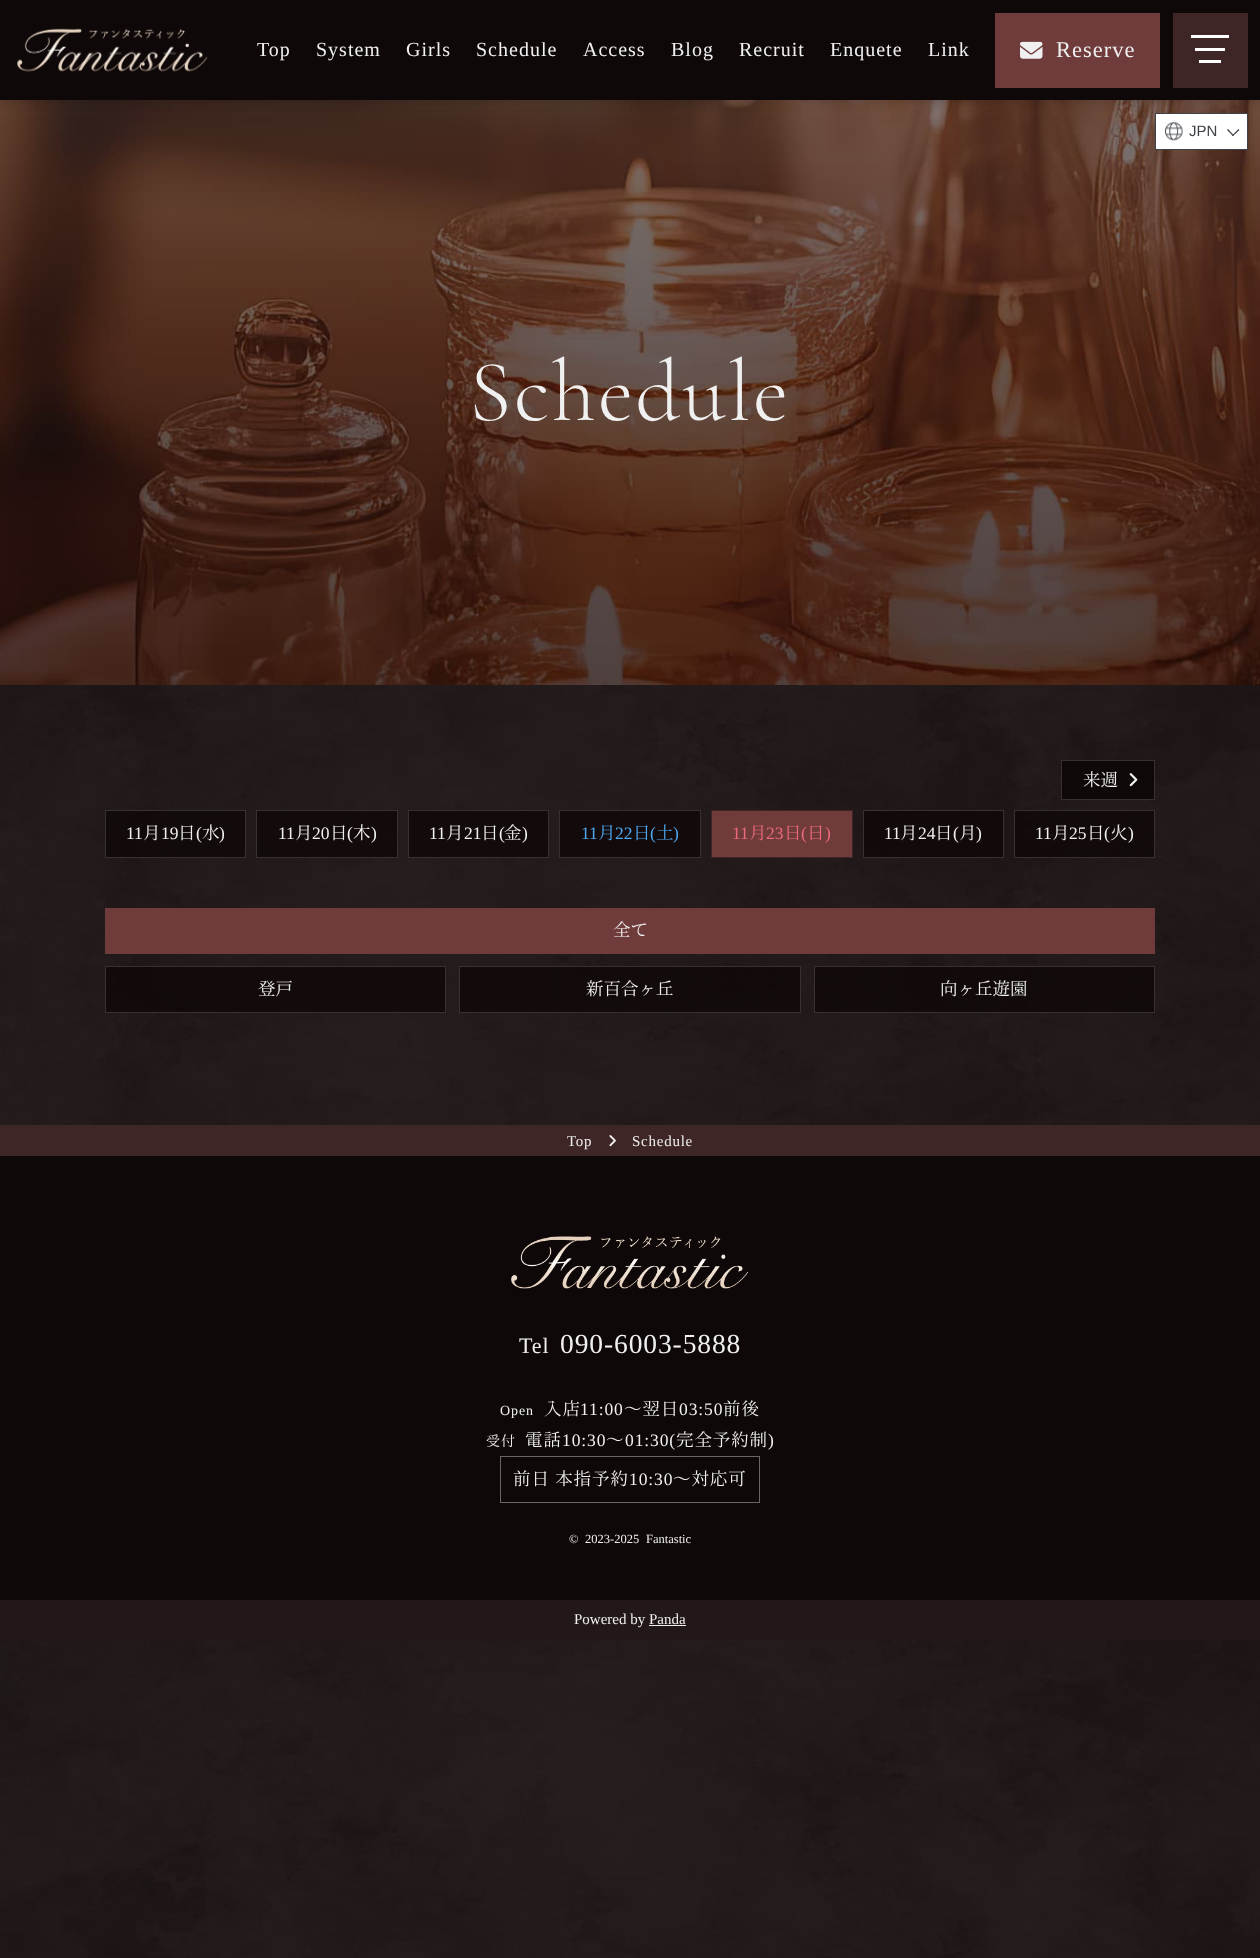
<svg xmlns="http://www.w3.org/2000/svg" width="1260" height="1958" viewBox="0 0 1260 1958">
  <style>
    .t1 { font: 20px Liberation Serif; letter-spacing: 1px; fill: #f0f0f0; }
    .t2 { font: 22.5px Liberation Serif; letter-spacing: 1px; fill: #f0f0f0; }
    .t3 { font: 15px Liberation Sans; fill: #3e4349; }
    .t4 { font: 300 87.5px Cormorant Garamond; letter-spacing: 2.5px; fill: #f0f0f0; }
    .t5 { font: 17.5px Noto Serif JP; fill: #f0f0f0; }
    .t6 { font: 17.5px Liberation Serif; fill: #f0f0f0; }
    .t7 { font: 17.5px Liberation Serif; fill: #4ea9f3; }
    .t8 { font: 17.5px Noto Serif JP; fill: #4ea9f3; }
    .t9 { font: 17.5px Liberation Serif; fill: #eb6a7a; }
    .t10 { font: 17.5px Noto Serif JP; fill: #eb6a7a; }
    .t11 { font: 15px Liberation Serif; letter-spacing: 0.75px; fill: #f0f0f0; }
    .t12 { font: 22px Liberation Serif; letter-spacing: 0.9px; fill: #f0f0f0; }
    .t13 { font: 27.5px Liberation Serif; letter-spacing: 0.9px; fill: #f0f0f0; }
    .t14 { font: 14px Liberation Serif; letter-spacing: 0.9px; fill: #f0f0f0; }
    .t15 { font: 17.5px Noto Serif JP; letter-spacing: 0.9px; fill: #f0f0f0; }
    .t16 { font: 17.5px Liberation Serif; letter-spacing: 0.9px; fill: #f0f0f0; }
    .t17 { font: 14px Noto Serif JP; letter-spacing: 0.9px; fill: #f0f0f0; }
    .t18 { font: 12.5px Liberation Serif; fill: #f0f0f0; }
    .t19 { font: 15px Liberation Serif; fill: #f0f0f0; }
  </style>
  <rect width="100%" height="100%" fill="#fff"/>
  <image x="0" y="685" width="1260" height="1273" href="images/1.png"/>
  <image x="0" y="100" width="1260" height="585" href="images/5.png"/>
  <rect x="0" y="0" width="1260" height="100" fill="#00000033" filter="blur(6px)"/>
  <rect x="0" y="0" width="1260" height="100" fill="#0f0808"/>
  <image x="17" y="28" width="191" height="44" href="images/2.png"/>
  <text x="257" y="56" class="t1">Top</text>
  <text x="316" y="56" class="t1">System</text>
  <text x="406" y="56" class="t1">Girls</text>
  <text x="476" y="56" class="t1">Schedule</text>
  <text x="583" y="56" class="t1">Access</text>
  <text x="671" y="56" class="t1">Blog</text>
  <text x="739" y="56" class="t1">Recruit</text>
  <text x="830" y="56" class="t1">Enquete</text>
  <text x="928" y="56" class="t1">Link</text>
  <rect x="995" y="13" width="165" height="75" fill="#6f3b3b"/>
  <image x="1020" y="41" width="23" height="18" href="images/3.png"/>
  <text x="1056" y="57" class="t2">Reserve</text>
  <rect x="1173" y="13" width="75" height="75" fill="#3e2626"/>
  <rect x="1191" y="35" width="38" height="3" fill="#fff"/>
  <rect x="1195" y="48" width="30" height="3" fill="#fff"/>
  <rect x="1199" y="60" width="22" height="3" fill="#fff"/>
  <rect x="1155.5" y="113.5" width="92" height="36" fill="#fff" stroke="#3e4349"/>
  <image x="1165" y="122" width="18" height="19" href="images/4.png"/>
  <text x="1189" y="136" class="t3">JPN</text>
  <path d="M1233 136L1227 130L1228 129L1234 135.5Z" fill="#3e4349"/>
  <path d="M1233 136L1232 135.5L1238.5 129L1239.5 130Z" fill="#3e4349"/>
  <text x="469" y="420" class="t4">Schedule</text>
  <rect x="1061.5" y="760.5" width="93" height="39" fill="#0f0808" stroke="#373131"/>
  <text x="1083" y="786" class="t5">来週</text>
  <image x="1129" y="773" width="9" height="14" href="images/6.png"/>
  <rect x="105.5" y="810.5" width="140" height="47" fill="#0f0808cc" stroke="#373131"/>
  <text x="126" y="839" class="t6">11</text>
  <text x="143" y="839" class="t5">月</text>
  <text x="161" y="839" class="t6">19</text>
  <text x="178" y="839" class="t5">日</text>
  <text x="196" y="839" class="t6">(</text>
  <text x="202" y="839" class="t5">水</text>
  <text x="219" y="839" class="t6">)</text>
  <rect x="256.5" y="810.5" width="141" height="47" fill="#0f0808cc" stroke="#373131"/>
  <text x="278" y="839" class="t6">11</text>
  <text x="295" y="839" class="t5">月</text>
  <text x="312" y="839" class="t6">20</text>
  <text x="330" y="839" class="t5">日</text>
  <text x="347" y="839" class="t6">(</text>
  <text x="353" y="839" class="t5">木</text>
  <text x="371" y="839" class="t6">)</text>
  <rect x="408.5" y="810.5" width="140" height="47" fill="#0f0808cc" stroke="#373131"/>
  <text x="429" y="839" class="t6">11</text>
  <text x="446" y="839" class="t5">月</text>
  <text x="464" y="839" class="t6">21</text>
  <text x="481" y="839" class="t5">日</text>
  <text x="499" y="839" class="t6">(</text>
  <text x="504" y="839" class="t5">金</text>
  <text x="522" y="839" class="t6">)</text>
  <rect x="559.5" y="810.5" width="141" height="47" fill="#0f0808cc" stroke="#373131"/>
  <text x="581" y="839" class="t7">11</text>
  <text x="598" y="839" class="t8">月</text>
  <text x="615" y="839" class="t7">22</text>
  <text x="633" y="839" class="t8">日</text>
  <text x="650" y="839" class="t7">(</text>
  <text x="656" y="839" class="t8">土</text>
  <text x="673" y="839" class="t7">)</text>
  <rect x="711.5" y="810.5" width="141" height="47" fill="#6f3b3b" stroke="#3e2626"/>
  <text x="732" y="839" class="t9">11</text>
  <text x="749" y="839" class="t10">月</text>
  <text x="766" y="839" class="t9">23</text>
  <text x="784" y="839" class="t10">日</text>
  <text x="801" y="839" class="t9">(</text>
  <text x="807" y="839" class="t10">日</text>
  <text x="825" y="839" class="t9">)</text>
  <rect x="863.5" y="810.5" width="140" height="47" fill="#0f0808cc" stroke="#373131"/>
  <text x="884" y="839" class="t6">11</text>
  <text x="900" y="839" class="t5">月</text>
  <text x="918" y="839" class="t6">24</text>
  <text x="935" y="839" class="t5">日</text>
  <text x="953" y="839" class="t6">(</text>
  <text x="959" y="839" class="t5">月</text>
  <text x="976" y="839" class="t6">)</text>
  <rect x="1014.5" y="810.5" width="140" height="47" fill="#0f0808cc" stroke="#373131"/>
  <text x="1035" y="839" class="t6">11</text>
  <text x="1052" y="839" class="t5">月</text>
  <text x="1069" y="839" class="t6">25</text>
  <text x="1087" y="839" class="t5">日</text>
  <text x="1104" y="839" class="t6">(</text>
  <text x="1110" y="839" class="t5">火</text>
  <text x="1128" y="839" class="t6">)</text>
  <rect x="105" y="908" width="1050" height="46" fill="#6f3b3b"/>
  <text x="613" y="936" class="t5">全て</text>
  <rect x="105.5" y="966.5" width="340" height="46" fill="#0f0808cc" stroke="#373131"/>
  <text x="258" y="995" class="t5">登戸</text>
  <rect x="459.5" y="966.5" width="341" height="46" fill="#0f0808cc" stroke="#373131"/>
  <text x="586" y="995" class="t5">新百合ヶ丘</text>
  <rect x="814.5" y="966.5" width="340" height="46" fill="#0f0808cc" stroke="#373131"/>
  <text x="940" y="995" class="t5">向ヶ丘遊園</text>
  <rect x="0" y="1125" width="1260" height="31" fill="#3e2626"/>
  <text x="567" y="1146" class="t11">Top</text>
  <image x="609" y="1135" width="7" height="12" href="images/7.png"/>
  <text x="632" y="1146" class="t11">Schedule</text>
  <rect x="0" y="1156" width="1260" height="444" fill="#0f0808"/>
  <image x="511" y="1236" width="237" height="53" href="images/8.png"/>
  <text x="519" y="1353" class="t12">Tel</text>
  <text x="560" y="1353" class="t13">090-6003-5888</text>
  <text x="500" y="1415" class="t14">Open</text>
  <text x="544" y="1415" class="t15">入店</text>
  <text x="580" y="1415" class="t16">11:00</text>
  <text x="624" y="1415" class="t15">〜翌日</text>
  <text x="679" y="1415" class="t16">03:50</text>
  <text x="723" y="1415" class="t15">前後</text>
  <text x="486" y="1446" class="t17">受付</text>
  <text x="525" y="1446" class="t15">電話</text>
  <text x="562" y="1446" class="t16">10:30</text>
  <text x="606" y="1446" class="t15">〜</text>
  <text x="625" y="1446" class="t16">01:30(</text>
  <text x="676" y="1446" class="t15">完全予約制</text>
  <text x="768" y="1446" class="t16">)</text>
  <rect x="500.5" y="1456.5" width="259" height="46" fill="none" stroke="#6b6565"/>
  <text x="513" y="1485" class="t15">前日 本指予約</text>
  <text x="629" y="1485" class="t16">10:30</text>
  <text x="673" y="1485" class="t15">〜対応可</text>
  <text x="569" y="1543" class="t18">©</text>
  <text x="585" y="1543" class="t18">2023-2025</text>
  <text x="646" y="1543" class="t18">Fantastic</text>
  <rect x="0" y="1600" width="1260" height="40" fill="#221818"/>
  <text x="574" y="1624" class="t19">Powered by Panda</text>
  <rect x="649" y="1625" width="37" height="1" fill="#f0f0f0"/>
</svg>
